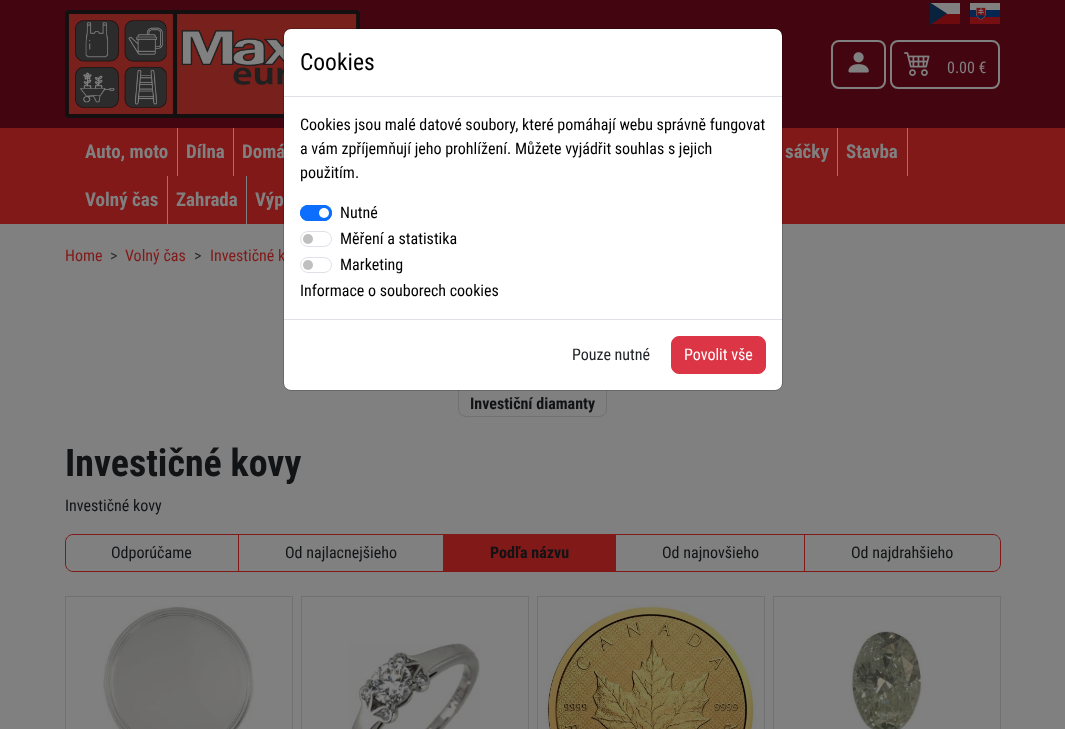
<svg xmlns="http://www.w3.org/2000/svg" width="1065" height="729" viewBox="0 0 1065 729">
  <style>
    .t1 { font: bold 19px Roboto Condensed; fill: #808080; }
    .t2 { font: 16px Roboto Condensed; fill: #801918; }
    .t3 { font: 23.5px Roboto Condensed; fill: #000; }
    .t4 { font: 16px Roboto Condensed; fill: #000; }
    .t5 { font: 16px Roboto Condensed; fill: #212529; }
    .t6 { font: 16px Roboto Condensed; fill: #fff; }
    .t7 { font: 16px Roboto Condensed; fill: #808080; }
    .t8 { font: 16px Roboto Condensed; fill: #2d2e30; }
    .t9 { font: bold 16px Roboto Condensed; fill: #111315; }
    .t10 { font: bold 38px Roboto Condensed; fill: #111315; }
    .t11 { font: 16px Roboto Condensed; fill: #111315; }
  </style>
  <rect width="100%" height="100%" fill="#808080"/>
  <rect x="0" y="0" width="1065" height="128" fill="#430510"/>
  <image x="65" y="10" width="295" height="108" href="images/1.png"/>
  <rect x="0" y="128" width="1065" height="96" fill="#801918"/>
  <text x="242" y="158" class="t1">Domá</text>
  <text x="210" y="261" class="t2">Investičné k</text>
  <rect x="458.5" y="284.5" width="148" height="132" rx="7.5" fill="none" stroke="#6f7173"/>
  <rect x="284" y="29" width="498" height="361" rx="7" fill="#fff"/>
  <text x="255" y="206" class="t1">Výp</text>
  <rect x="283.5" y="28.5" width="499" height="362" rx="7.5" fill="none" stroke="#0000002e"/>
  <rect x="284" y="96" width="498" height="1" fill="#dee2e6"/>
  <text x="300" y="70" class="t3">Cookies</text>
  <text x="300" y="130" class="t4">Cookies jsou malé datové soubory, které pomáhají webu správně fungovat</text>
  <text x="300" y="154" class="t4">a vám zpříjemňují jeho prohlížení. Můžete vyjádřit souhlas s jejich</text>
  <text x="300" y="178" class="t4">použitím.</text>
  <rect x="300" y="205" width="32" height="16" rx="8" fill="#0d6efd"/>
  <circle cx="324" cy="213" r="5" fill="#fff"/>
  <rect x="300.5" y="205.5" width="31" height="15" rx="7.5" fill="none" stroke="#0d6efd"/>
  <text x="340" y="218" class="t4">Nutné</text>
  <circle cx="308" cy="239" r="5" fill="#bfbfbf"/>
  <rect x="300.5" y="231.5" width="31" height="15" rx="7.5" fill="none" stroke="#dee2e6"/>
  <text x="340" y="244" class="t4">Měření a statistika</text>
  <circle cx="308" cy="265" r="5" fill="#bfbfbf"/>
  <rect x="300.5" y="257.5" width="31" height="15" rx="7.5" fill="none" stroke="#dee2e6"/>
  <text x="340" y="270" class="t4">Marketing</text>
  <text x="300" y="296" class="t4">Informace o souborech cookies</text>
  <rect x="284" y="319" width="498" height="1" fill="#dee2e6"/>
  <text x="572" y="360" class="t5">Pouze nutné</text>
  <rect x="671.5" y="336.5" width="94" height="37" rx="7.5" fill="#dc3545" stroke="#dc3545"/>
  <text x="684" y="360" class="t6">Povolit vše</text>
  <rect x="930" y="3" width="30" height="11" fill="#808080"/>
  <rect x="931" y="14" width="29" height="10" fill="#6c0a0d"/>
  <path d="M947 13.5L930 2.5V25Z" fill="#09233f"/>
  <image x="970" y="3" width="30" height="21" href="images/2.png"/>
  <rect x="832" y="41" width="53" height="47" rx="7" fill="none" stroke="#808080" stroke-width="2"/>
  <image x="848" y="52" width="21" height="21" href="images/3.png"/>
  <rect x="891" y="41" width="108" height="47" rx="7" fill="none" stroke="#808080" stroke-width="2"/>
  <image x="904" y="52" width="26" height="24" href="images/4.png"/>
  <text x="947" y="73" class="t7">0.00 €</text>
  <rect x="177" y="128" width="1" height="48" fill="#808080"/>
  <text x="85" y="158" class="t1">Auto, moto</text>
  <rect x="233" y="128" width="1" height="48" fill="#808080"/>
  <text x="186" y="158" class="t1">Dílna</text>
  <rect x="837" y="128" width="1" height="48" fill="#808080"/>
  <text x="785" y="158" class="t1">sáčky</text>
  <rect x="907" y="128" width="1" height="48" fill="#808080"/>
  <text x="846" y="158" class="t1">Stavba</text>
  <rect x="167" y="176" width="1" height="48" fill="#808080"/>
  <text x="85" y="206" class="t1">Volný čas</text>
  <rect x="246" y="176" width="1" height="48" fill="#808080"/>
  <text x="176" y="206" class="t1">Zahrada</text>
  <text x="65" y="261" class="t2">Home</text>
  <text x="110" y="261" class="t8">&gt;</text>
  <text x="125" y="261" class="t2">Volný čas</text>
  <text x="194" y="261" class="t8">&gt;</text>
  <text x="470" y="409" class="t9">Investiční diamanty</text>
  <text x="65" y="476" class="t10">Investičné kovy</text>
  <text x="65" y="511" class="t11">Investičné kovy</text>
  <path d="M73 534.5H238.5V571.5H73C69 571.5 65.5 568 65.5 564V542C65.5 538 69 534.5 73 534.5Z" fill="none" stroke="#801918"/>
  <text x="111" y="558" class="t11">Odporúčame</text>
  <rect x="238.5" y="534.5" width="205" height="37" fill="none" stroke="#801918"/>
  <text x="285" y="558" class="t11">Od najlacnejšieho</text>
  <rect x="444" y="534" width="171" height="38" fill="#801918"/>
  <text x="490" y="558" class="t9">Podľa názvu</text>
  <rect x="615.5" y="534.5" width="189" height="37" fill="none" stroke="#801918"/>
  <text x="662" y="558" class="t11">Od najnovšieho</text>
  <path d="M804.5 534.5H993C997 534.5 1000.5 538 1000.5 542V564C1000.5 568 997 571.5 993 571.5H804.5Z" fill="none" stroke="#801918"/>
  <text x="851" y="558" class="t11">Od najdrahšieho</text>
  <rect x="65.5" y="596.5" width="227" height="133" fill="none" stroke="#6f7173"/>
  <image x="103" y="606" width="151" height="123" href="images/5.png"/>
  <rect x="301.5" y="596.5" width="227" height="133" fill="none" stroke="#6f7173"/>
  <image x="349" y="643" width="131" height="86" href="images/6.png"/>
  <rect x="537.5" y="596.5" width="227" height="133" fill="none" stroke="#6f7173"/>
  <image x="546" y="605" width="210" height="124" href="images/7.png"/>
  <rect x="773.5" y="596.5" width="227" height="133" fill="none" stroke="#6f7173"/>
  <image x="850" y="630" width="73" height="99" href="images/8.png"/>
</svg>
